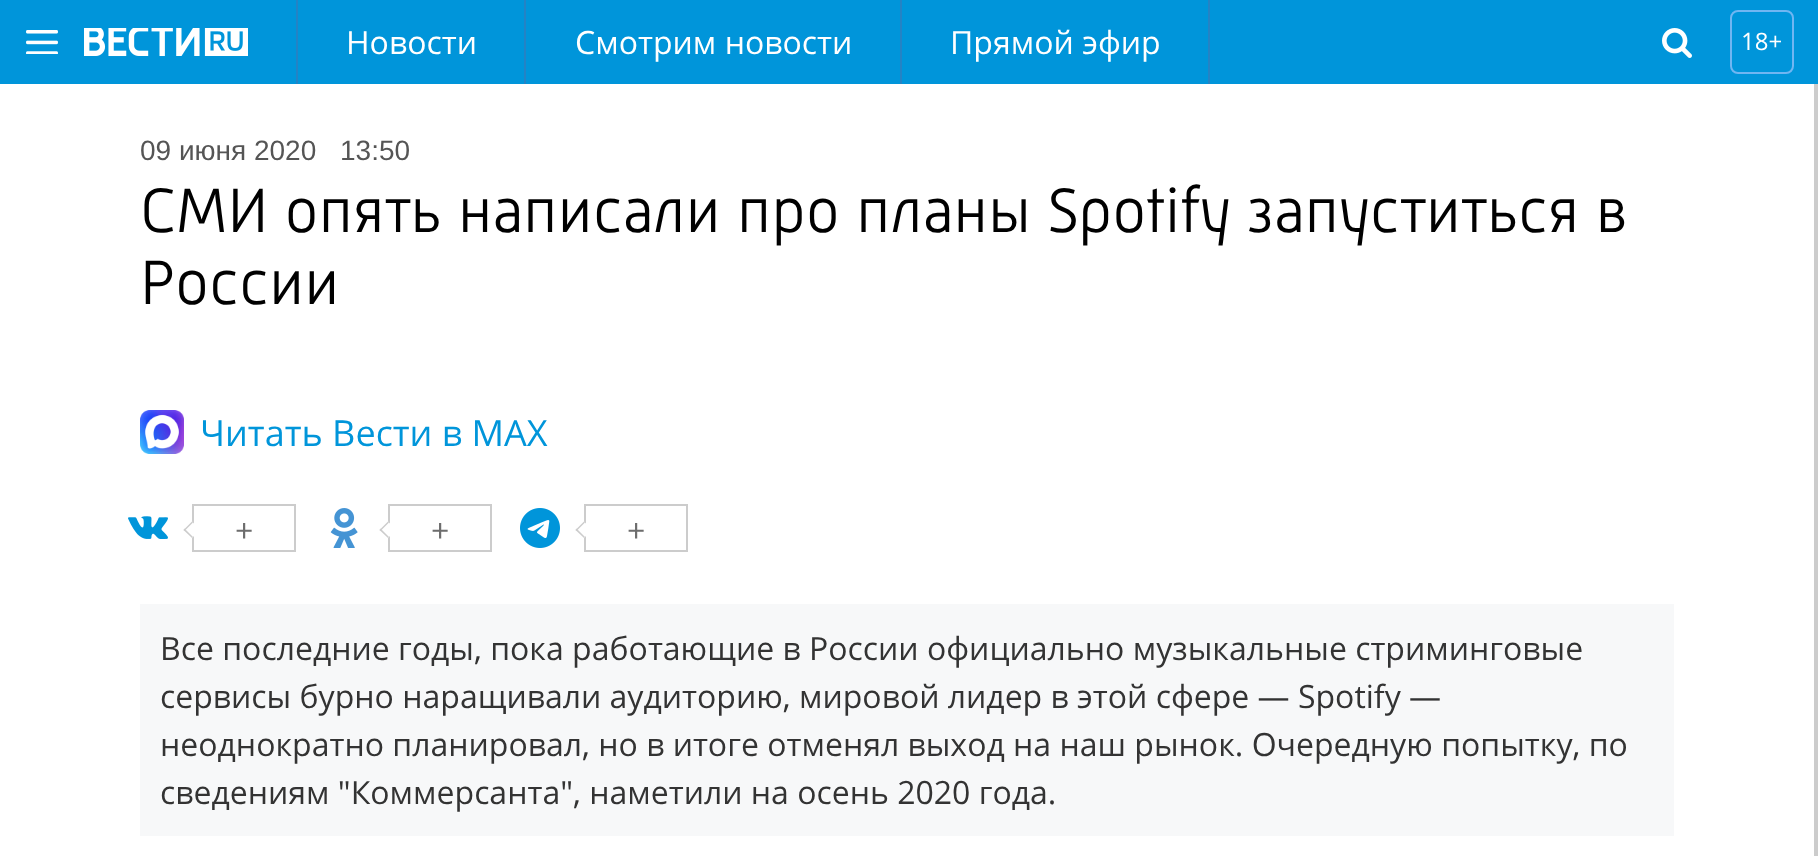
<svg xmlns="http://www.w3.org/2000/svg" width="1818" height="856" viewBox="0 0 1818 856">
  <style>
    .t1 { font: 32px Open Sans; fill: #fff; }
    .t2 { font: 24px Open Sans; fill: #fff; }
    .t3 { font: 28px Arimo; fill: #555; }
    .t4 { font: 300 64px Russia; fill: #000; }
    .t5 { font: 36px Open Sans; fill: #0095da; }
    .t6 { font: 32px Open Sans; fill: #6d6d6d; }
    .t7 { font: 32px Open Sans; fill: #333; }
  </style>
  <rect width="100%" height="100%" fill="#fff"/>
  <rect x="0" y="0" width="1818" height="84" fill="#0095da"/>
  <image x="26" y="30" width="32" height="24" href="images/1.png"/>
  <image x="84" y="28" width="164" height="29" href="images/2.png"/>
  <rect x="524" y="0" width="2" height="84" fill="#2483c5"/>
  <rect x="296" y="0" width="2" height="84" fill="#2483c5"/>
  <text x="346" y="54" class="t1">Новости</text>
  <rect x="900" y="0" width="2" height="84" fill="#2483c5"/>
  <text x="575" y="54" class="t1">Смотрим новости</text>
  <rect x="1208" y="0" width="2" height="84" fill="#2483c5"/>
  <text x="950" y="54" class="t1">Прямой эфир</text>
  <image x="1662" y="28" width="30" height="30" href="images/3.png"/>
  <rect x="1731" y="11" width="62" height="62" rx="7" fill="none" stroke="#70b6f2" stroke-width="2"/>
  <text x="1741" y="50" class="t2">18+</text>
  <rect x="1814" y="84" width="4" height="772" fill="#ccc"/>
  <text x="140" y="160" class="t3">09 июня 2020</text>
  <text x="340" y="160" class="t3">13:50</text>
  <text x="140" y="232" class="t4">СМИ опять написали про планы Spotify запуститься в</text>
  <text x="140" y="304" class="t4">России</text>
  <image x="140" y="410" width="44" height="44" href="images/4.png"/>
  <text x="200" y="446" class="t5">Читать Вести в MAX</text>
  <image x="128" y="516" width="40" height="23" href="images/5.png"/>
  <rect x="193" y="505" width="102" height="46" fill="none" stroke="#ccc" stroke-width="2"/>
  <path d="M183.5 530L192 521.5L200 530L192 538Z" fill="#fff"/>
  <path d="M183.5 530L192 521.5L193 522.5L184.5 531Z" fill="#ccc"/>
  <path d="M183.5 530L184.5 528.5L193 537L192 538Z" fill="#ccc"/>
  <text x="235" y="542" class="t6">+</text>
  <image x="330" y="508" width="28" height="40" href="images/6.png"/>
  <rect x="389" y="505" width="102" height="46" fill="none" stroke="#ccc" stroke-width="2"/>
  <path d="M379.5 530L388 521.5L396 530L388 538Z" fill="#fff"/>
  <path d="M379.5 530L388 521.5L389 522.5L380.5 531Z" fill="#ccc"/>
  <path d="M379.5 530L380.5 528.5L389 537L388 538Z" fill="#ccc"/>
  <text x="431" y="542" class="t6">+</text>
  <image x="520" y="508" width="40" height="40" href="images/7.png"/>
  <rect x="585" y="505" width="102" height="46" fill="none" stroke="#ccc" stroke-width="2"/>
  <path d="M575.5 530L584 521.5L592 530L584 538Z" fill="#fff"/>
  <path d="M575.5 530L584 521.5L585 522.5L576.5 531Z" fill="#ccc"/>
  <path d="M575.5 530L576.5 528.5L585 537L584 538Z" fill="#ccc"/>
  <text x="627" y="542" class="t6">+</text>
  <rect x="140" y="604" width="1534" height="232" fill="#f7f8f9"/>
  <text x="160" y="660" class="t7">Все последние годы, пока работающие в России официально музыкальные стриминговые</text>
  <text x="160" y="708" class="t7">сервисы бурно наращивали аудиторию, мировой лидер в этой сфере — Spotify —</text>
  <text x="160" y="756" class="t7">неоднократно планировал, но в итоге отменял выход на наш рынок. Очередную попытку, по</text>
  <text x="160" y="804" class="t7">сведениям "Коммерсанта", наметили на осень 2020 года.</text>
</svg>
